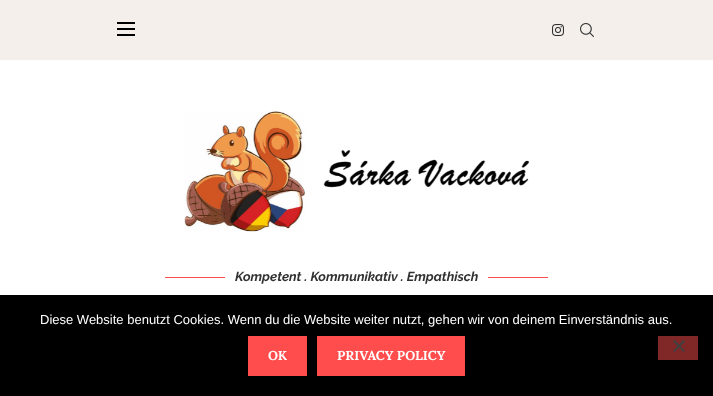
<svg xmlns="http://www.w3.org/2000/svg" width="713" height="396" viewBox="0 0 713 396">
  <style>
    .t1 { font: italic bold 13px Raleway; fill: #313131; }
    .t2 { font: 13px Liberation Sans; fill: #fff; }
    .t3 { font: bold 13px Lora; fill: #fff; }
  </style>
  <rect width="100%" height="100%" fill="#fff"/>
  <rect x="0" y="0" width="713" height="60" fill="#f4efea"/>
  <rect x="117" y="22" width="18" height="2" fill="#000"/>
  <rect x="117" y="28" width="18" height="2" fill="#000"/>
  <rect x="117" y="34" width="18" height="2" fill="#000"/>
  <image x="552" y="24" width="12" height="12" href="images/1.png"/>
  <image x="580" y="23" width="14" height="14" href="images/2.png"/>
  <image x="184" y="111" width="346" height="121" href="images/3.png"/>
  <rect x="165" y="277" width="60" height="1" fill="#ff4d4d"/>
  <text x="235" y="281" class="t1">Kompetent . Kommunikativ . Empathisch</text>
  <rect x="488" y="277" width="60" height="1" fill="#ff4d4d"/>
  <rect x="0" y="295" width="713" height="101" fill="#000"/>
  <text x="40" y="324" class="t2">Diese Website benutzt Cookies. Wenn du die Website weiter nutzt, gehen wir von deinem Einverständnis aus.</text>
  <rect x="248" y="336" width="59" height="40" fill="#ff4d4d"/>
  <text x="268" y="360" class="t3">OK</text>
  <rect x="317" y="336" width="148" height="40" fill="#ff4d4d"/>
  <text x="337" y="360" class="t3">PRIVACY POLICY</text>
  <rect x="658" y="336" width="40" height="24" fill="#802727"/>
  <path d="M683.5 340L685 341.5L674.5 352L673 351Z" fill="#404040"/>
  <path d="M673 341.5L674.5 340L685 351L683.5 352Z" fill="#404040"/>
</svg>
